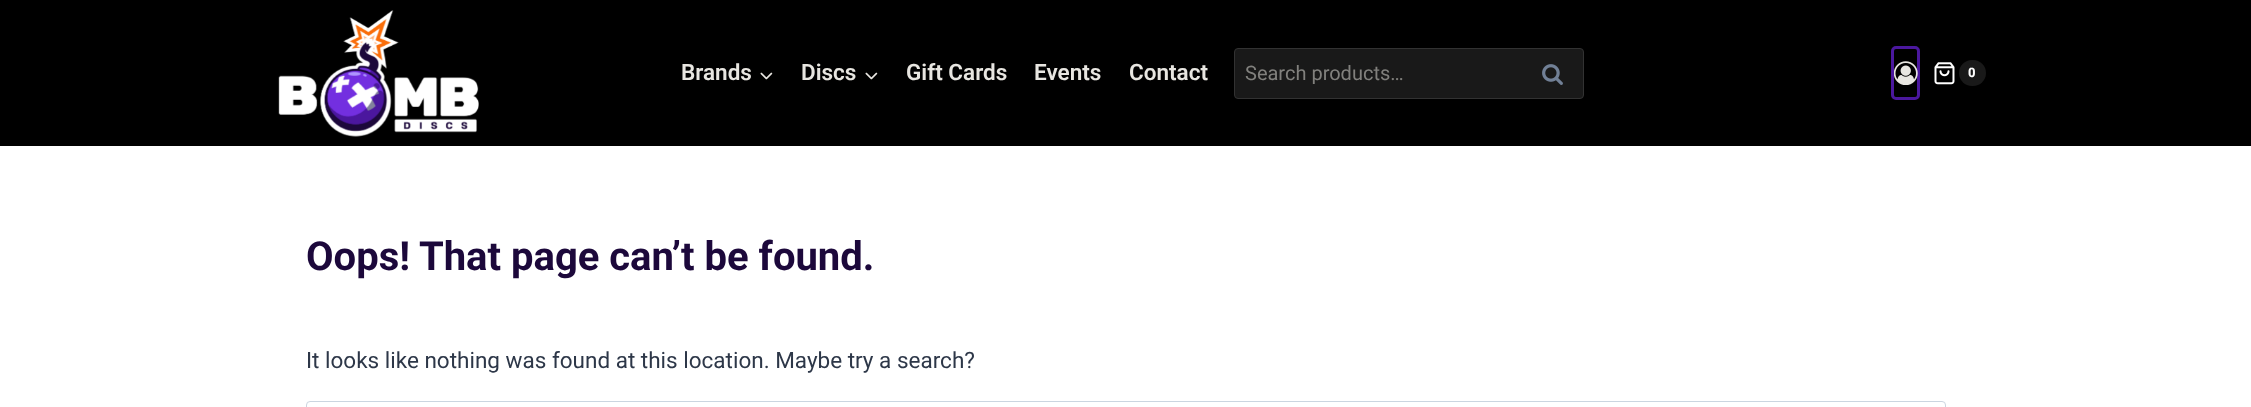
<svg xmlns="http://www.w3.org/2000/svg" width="2251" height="407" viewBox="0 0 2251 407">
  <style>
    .t1 { font: 600 22.5px Roboto; fill: #e8e6e1; }
    .t2 { font: 20px Roboto; fill: #81807d; }
    .t3 { font: 800 13px Roboto; fill: #fff; }
    .t4 { font: bold 40px Roboto; fill: #1c083b; }
    .t5 { font: 22.5px Roboto; fill: #2d3748; }
  </style>
  <rect width="100%" height="100%" fill="#fff"/>
  <rect x="0" y="0" width="2251" height="146" fill="#000"/>
  <image x="278" y="10" width="201" height="127" href="images/1.png"/>
  <text x="681" y="80" class="t1">Brands</text>
  <image x="760" y="72" width="13" height="8" href="images/2.png"/>
  <text x="801" y="80" class="t1">Discs</text>
  <image x="865" y="72" width="13" height="8" href="images/2.png"/>
  <text x="906" y="80" class="t1">Gift Cards</text>
  <text x="1034" y="80" class="t1">Events</text>
  <text x="1129" y="80" class="t1">Contact</text>
  <rect x="1234.5" y="48.5" width="349" height="50" rx="3.5" fill="#191919" stroke="#323232"/>
  <text x="1245" y="80" class="t2">Search products…</text>
  <image x="1542" y="64" width="21" height="21" href="images/3.png"/>
  <rect x="1892.5" y="47.5" width="26" height="51" rx="3.5" fill="none" stroke="#4b189e" stroke-width="3"/>
  <image x="1894" y="61" width="24" height="24" href="images/4.png"/>
  <image x="1934" y="62" width="21" height="23" href="images/5.png"/>
  <rect x="1959" y="60" width="27" height="26" rx="13" fill="#191919"/>
  <text x="1968" y="77" class="t3">0</text>
  <text x="306" y="270" class="t4">Oops! That page can’t be found.</text>
  <text x="306" y="368" class="t5">It looks like nothing was found at this location. Maybe try a search?</text>
  <rect x="306.5" y="401.5" width="1639" height="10" rx="3.5" fill="none" stroke="#cbd5e0"/>
</svg>
